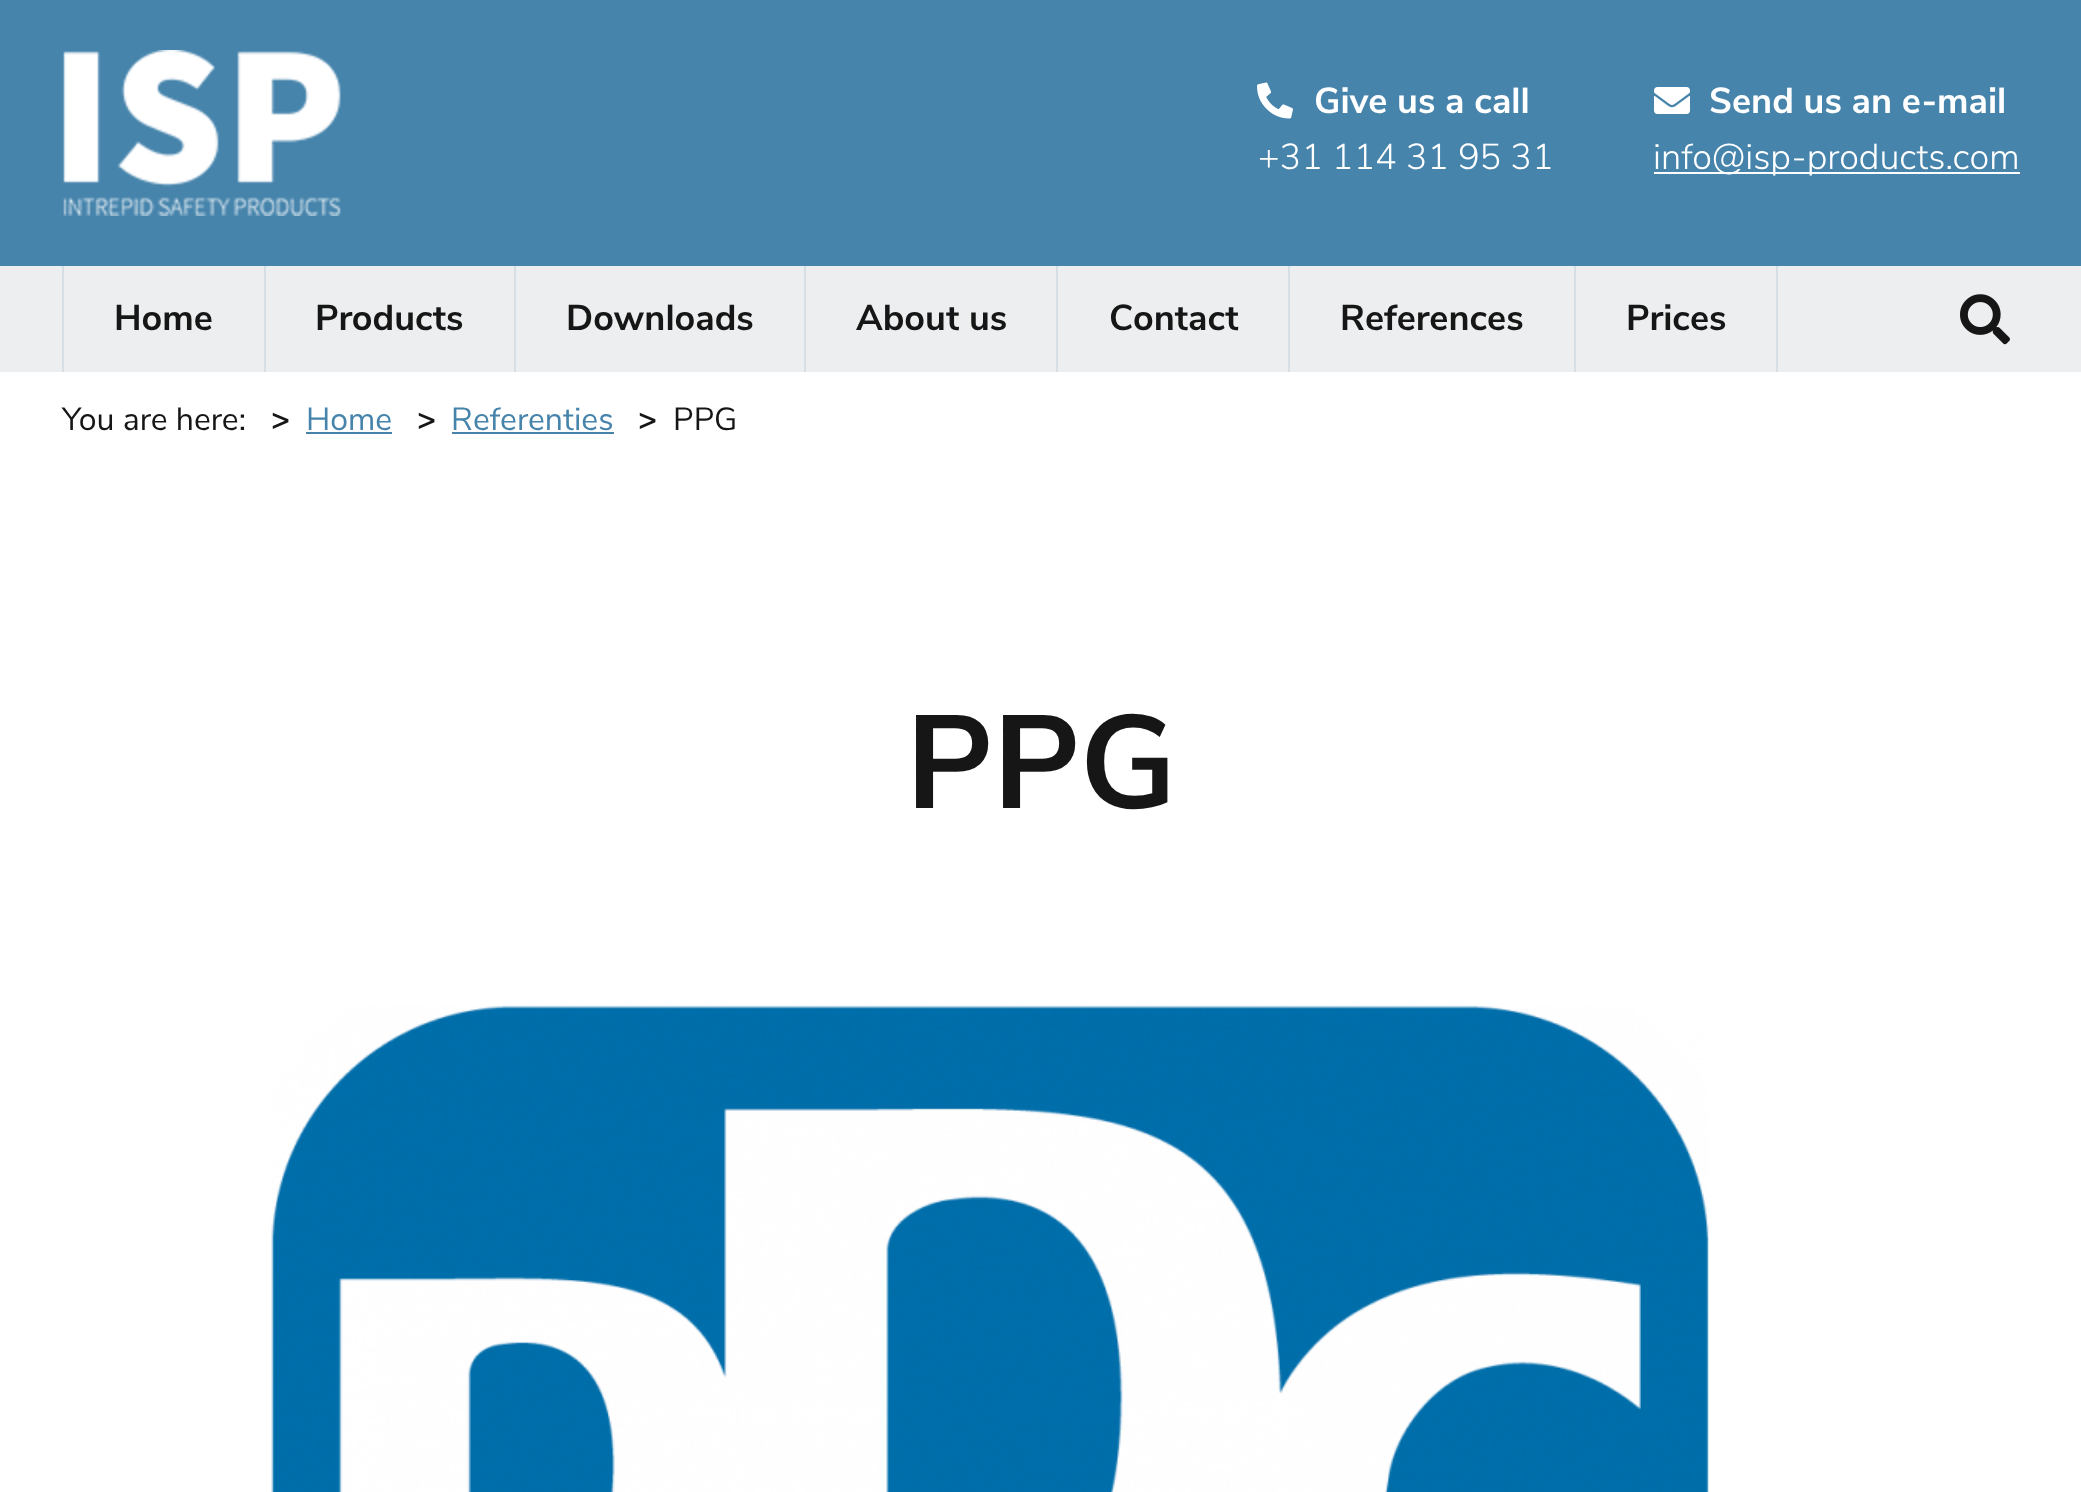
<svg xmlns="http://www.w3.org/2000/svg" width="2081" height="1492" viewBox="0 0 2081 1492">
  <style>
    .t1 { font: bold 36px Nunito Sans; fill: #fff; }
    .t2 { font: 300 36px Nunito Sans; fill: #fff; }
    .t3 { font: bold 36px Nunito Sans; fill: #161616; }
    .t4 { font: 32px Nunito Sans; fill: #161616; }
    .t5 { font: bold 32px Nunito Sans; letter-spacing: -10px; fill: #161616; }
    .t6 { font: 32px Nunito Sans; fill: #4684ac; }
    .t7 { font: bold 132px Nunito Sans; fill: #161616; }
  </style>
  <rect width="100%" height="100%" fill="#fff"/>
  <rect x="0" y="0" width="2081" height="266" fill="#4684ac"/>
  <image x="63" y="50" width="278" height="166" href="images/1.png"/>
  <image x="1257" y="82" width="36" height="37" href="images/2.png"/>
  <text x="1314" y="113" class="t1">Give us a call</text>
  <text x="1258" y="169" class="t2">+31 114 31 95 31</text>
  <image x="1654" y="87" width="36" height="27" href="images/3.png"/>
  <text x="1709" y="113" class="t1">Send us an e-mail</text>
  <rect x="1654" y="172" width="366" height="2" fill="#fff"/>
  <text x="1653" y="169" class="t2">info@isp-products.com</text>
  <rect x="0" y="266" width="2081" height="106" fill="#eceeef"/>
  <rect x="62" y="266" width="2" height="106" fill="#d7dfe4"/>
  <text x="114" y="330" class="t3">Home</text>
  <rect x="264" y="266" width="2" height="106" fill="#d7dfe4"/>
  <text x="315" y="330" class="t3">Products</text>
  <rect x="514" y="266" width="2" height="106" fill="#d7dfe4"/>
  <text x="566" y="330" class="t3">Downloads</text>
  <rect x="804" y="266" width="2" height="106" fill="#d7dfe4"/>
  <text x="856" y="330" class="t3">About us</text>
  <rect x="1056" y="266" width="2" height="106" fill="#d7dfe4"/>
  <text x="1109" y="330" class="t3">Contact</text>
  <rect x="1288" y="266" width="2" height="106" fill="#d7dfe4"/>
  <text x="1340" y="330" class="t3">References</text>
  <rect x="1776" y="266" width="2" height="106" fill="#d7dfe4"/>
  <rect x="1574" y="266" width="2" height="106" fill="#d7dfe4"/>
  <text x="1626" y="330" class="t3">Prices</text>
  <image x="1960" y="294" width="50" height="51" href="images/4.png"/>
  <text x="62" y="430" class="t4">You are here:</text>
  <text x="271" y="430" class="t5">&gt;</text>
  <text x="306" y="430" class="t6">Home</text>
  <rect x="306" y="432" width="86" height="2" fill="#4684ac"/>
  <text x="417" y="430" class="t5">&gt;</text>
  <text x="451" y="430" class="t6">Referenties</text>
  <rect x="452" y="432" width="162" height="2" fill="#4684ac"/>
  <text x="638" y="430" class="t5">&gt;</text>
  <text x="673" y="430" class="t4">PPG</text>
  <text x="906" y="808" class="t7">PPG</text>
  <image x="271" y="1005" width="1438" height="487" href="images/5.png"/>
</svg>
